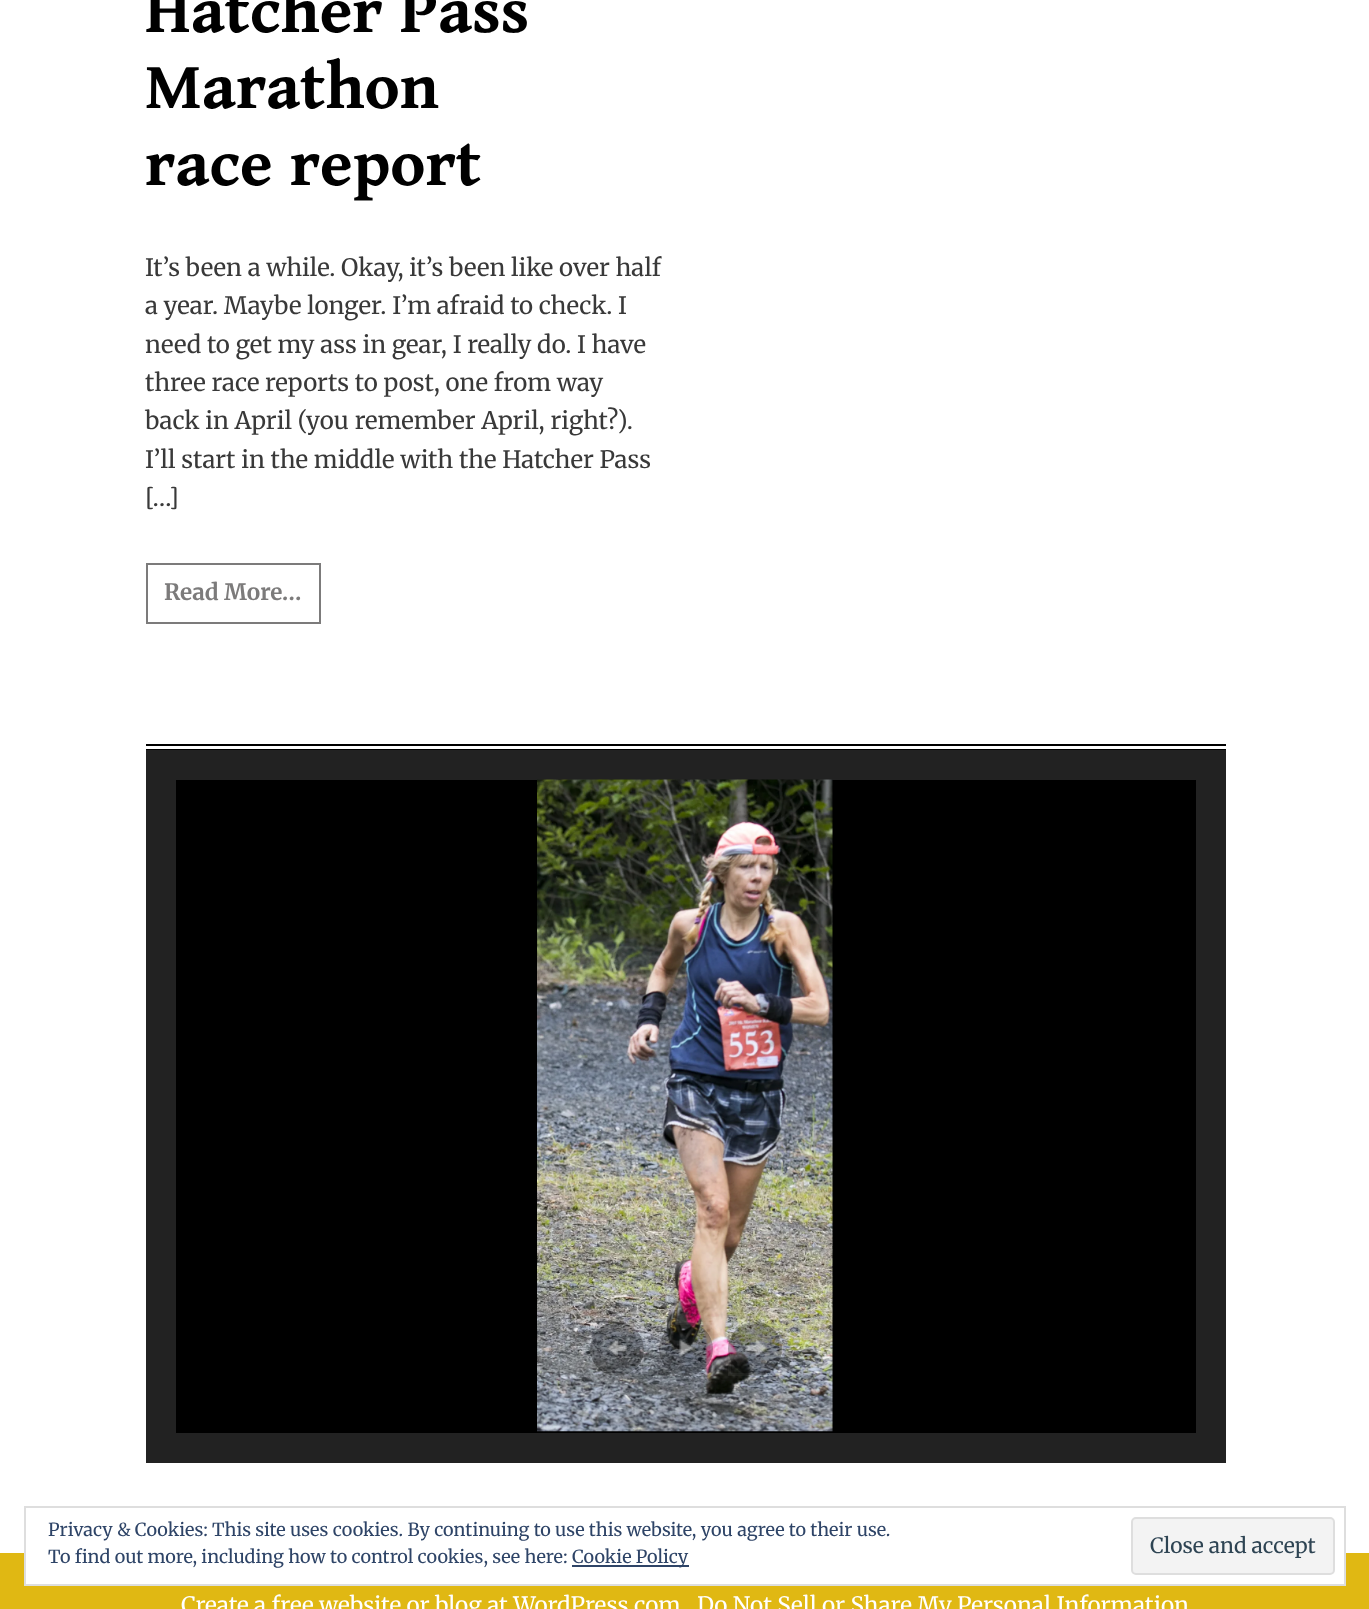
<svg xmlns="http://www.w3.org/2000/svg" width="1369" height="1609" viewBox="0 0 1369 1609">
  <style>
    .t1 { font: bold 66.25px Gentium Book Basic; fill: #000; }
    .t2 { font: 24px Merriweather; fill: #393939; }
    .t3 { font: bold 22.5px Merriweather; fill: #7c7b7b; }
    .t4 { font: 22.5px Merriweather; fill: #fff; }
    .t5 { font: 18px Merriweather; fill: #2e4467; }
    .t6 { font: 21px Merriweather; fill: #2e4453; }
  </style>
  <rect width="100%" height="100%" fill="#fff"/>
  <text x="145" y="32" class="t1">Hatcher Pass</text>
  <text x="145" y="108" class="t1">Marathon</text>
  <text x="145" y="185" class="t1">race report</text>
  <text x="145" y="276" class="t2">It’s been a while. Okay, it’s been like over half</text>
  <text x="145" y="314" class="t2">a year. Maybe longer. I’m afraid to check. I</text>
  <text x="145" y="353" class="t2">need to get my ass in gear, I really do. I have</text>
  <text x="145" y="391" class="t2">three race reports to post, one from way</text>
  <text x="145" y="429" class="t2">back in April (you remember April, right?).</text>
  <text x="145" y="468" class="t2">I’ll start in the middle with the Hatcher Pass</text>
  <text x="145" y="506" class="t2">[…]</text>
  <rect x="147" y="564" width="173" height="59" fill="none" stroke="#7c7b7b" stroke-width="2"/>
  <text x="164" y="600" class="t3">Read More…</text>
  <rect x="146" y="744" width="1080" height="2" fill="#000"/>
  <rect x="146" y="749" width="1080" height="2" fill="#000"/>
  <rect x="161" y="765" width="1050" height="683" fill="none" stroke="#222" stroke-width="30"/>
  <rect x="176" y="780" width="1020" height="653" fill="#000"/>
  <image x="537" y="779" width="296" height="653" href="images/1.png"/>
  <circle cx="617" cy="1349" r="27" fill="#0000004d"/>
  <image x="606" y="1339" width="24" height="19" href="images/2.png"/>
  <rect x="591.5" y="1323.5" width="51" height="51" fill="none" stroke="#ffffff0d" stroke-width="3"/>
  <circle cx="686" cy="1349" r="27" fill="#0000004d"/>
  <image x="679" y="1339" width="17" height="19" href="images/3.png"/>
  <rect x="660.5" y="1323.5" width="51" height="51" fill="none" stroke="#ffffff0d" stroke-width="3"/>
  <circle cx="755" cy="1349" r="27" fill="#0000004d"/>
  <image x="746" y="1339" width="24" height="20" href="images/4.png"/>
  <rect x="729.5" y="1323.5" width="51" height="51" fill="none" stroke="#ffffff0d" stroke-width="3"/>
  <rect x="0" y="1553" width="1369" height="56" fill="#e0b813"/>
  <text x="181" y="1613" class="t4">Create a free website or blog at WordPress.com</text>
  <text x="697" y="1613" class="t4">Do Not Sell or Share My Personal Information</text>
  <rect x="26" y="1553" width="1318" height="31" fill="#fff"/>
  <rect x="25" y="1507" width="1320" height="78" fill="none" stroke="#dedede" stroke-width="2"/>
  <text x="48" y="1536" class="t5">Privacy &amp; Cookies: This site uses cookies. By continuing to use this website, you agree to their use.</text>
  <text x="48" y="1563" class="t5">To find out more, including how to control cookies, see here:</text>
  <rect x="572" y="1565" width="117" height="2" fill="#2e4467"/>
  <text x="572" y="1563" class="t5">Cookie Policy</text>
  <rect x="1132" y="1518" width="202" height="56" rx="4" fill="#f3f3f3" stroke="#dedede" stroke-width="2"/>
  <text x="1150" y="1553" class="t6">Close and accept</text>
</svg>
